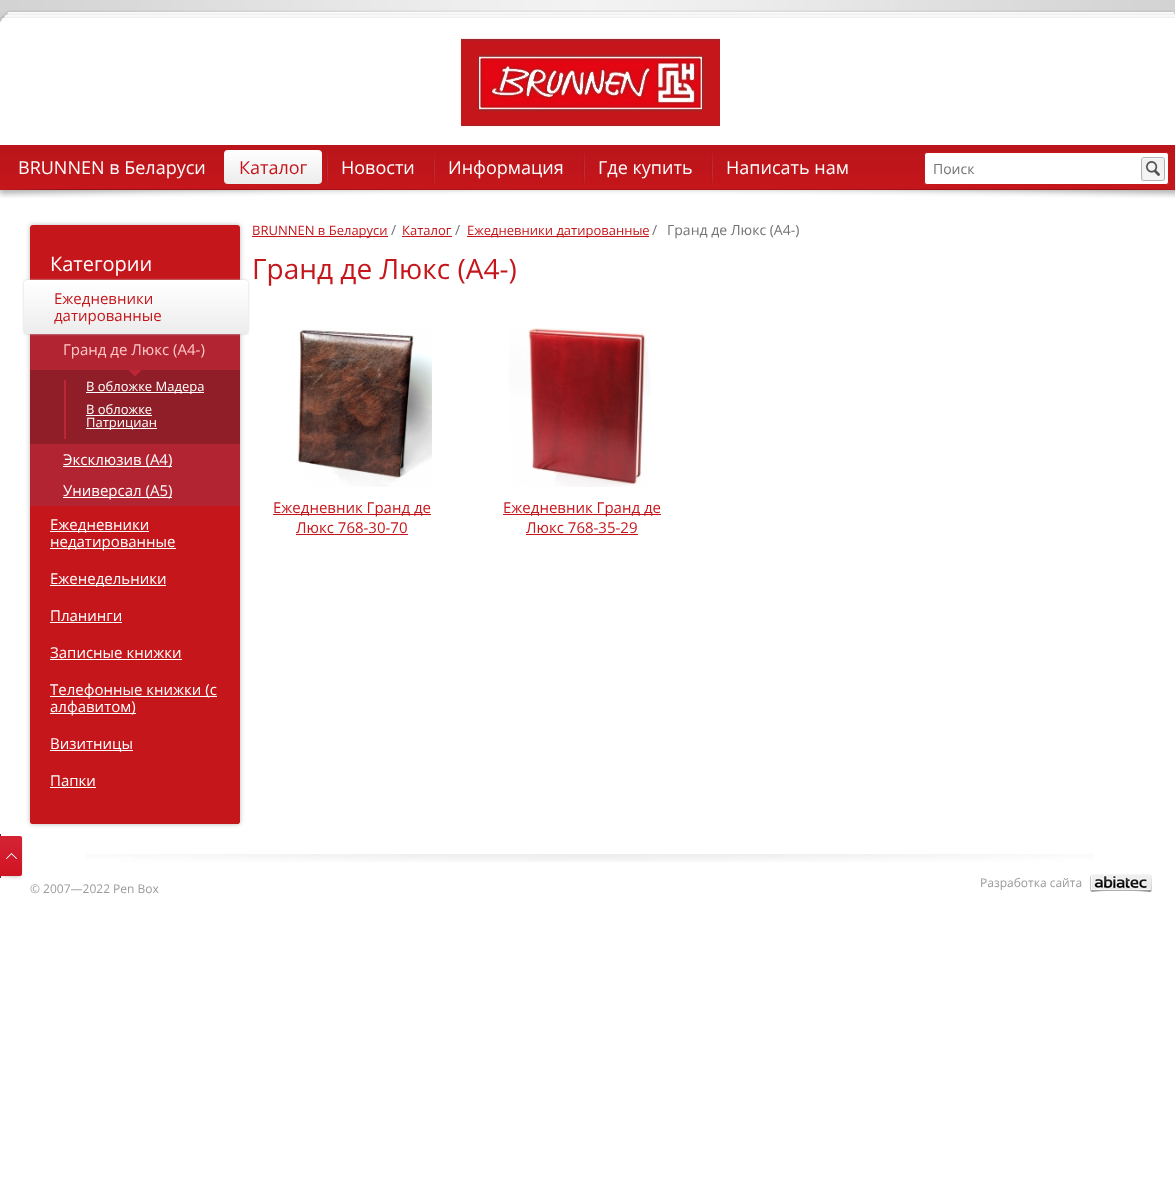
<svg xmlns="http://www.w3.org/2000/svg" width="1175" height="1180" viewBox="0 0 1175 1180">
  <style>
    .t1 { font: 18px Open Sans; fill: #fff; }
    .t2 { font: 18px Open Sans; fill: #c5161b; }
    .t3 { font: 14px Open Sans; fill: #737373; }
    .t4 { font: 20px Open Sans; fill: #fff; }
    .t5 { font: 15px Open Sans; fill: #c5161b; }
    .t6 { font: 15px Open Sans; fill: #ffc7c7; }
    .t7 { font: 13px Open Sans; fill: #fff; }
    .t8 { font: 15px Open Sans; fill: #fff; }
    .t9 { font: 13px Open Sans; fill: #c5161b; }
    .t10 { font: 28px Open Sans; fill: #c5161b; }
    .t11 { font: 12px Open Sans; fill: #9b9b9b; }
  </style>
  <defs>
    <linearGradient id="g1" gradientUnits="userSpaceOnUse" x1="591" y1="145" x2="591" y2="190"><stop offset="0" stop-color="#b9151a"/><stop offset="1" stop-color="#c5161b"/></linearGradient>
    <linearGradient id="g2" gradientUnits="userSpaceOnUse" x1="273" y1="150" x2="273" y2="184"><stop offset="0" stop-color="#fff"/><stop offset="1" stop-color="#ececec"/></linearGradient>
    <linearGradient id="g3" gradientUnits="userSpaceOnUse" x1="136" y1="280" x2="136" y2="334"><stop offset="0" stop-color="#fff"/><stop offset="0.21" stop-color="#fcfcfc"/><stop offset="1" stop-color="#ececec"/></linearGradient>
  </defs>
  <rect width="100%" height="100%" fill="#fff"/>
  <image x="0" y="0" width="1175" height="23" href="images/1.png"/>
  <rect x="0" y="20" width="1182" height="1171" rx="3" fill="#808080" filter="blur(2.5px)"/>
  <rect x="0" y="20" width="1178" height="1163" rx="3" fill="#fff"/>
  <image x="0" y="10" width="1175" height="10" href="images/2.png"/>
  <image x="461" y="37" width="259" height="90" href="images/3.png"/>
  <rect x="0" y="145" width="1175" height="45" fill="url(#g1)"/>
  <text x="18" y="174" class="t1">BRUNNEN в Беларуси</text>
  <image x="224" y="152" width="2" height="35" href="images/4.png"/>
  <rect x="224" y="150" width="98" height="34" rx="4" fill="url(#g2)"/>
  <text x="239" y="174" class="t2">Каталог</text>
  <image x="326" y="152" width="2" height="35" href="images/4.png"/>
  <text x="341" y="174" class="t1">Новости</text>
  <image x="433" y="152" width="2" height="35" href="images/4.png"/>
  <text x="448" y="174" class="t1">Информация</text>
  <image x="583" y="152" width="2" height="35" href="images/4.png"/>
  <text x="598" y="174" class="t1">Где купить</text>
  <image x="711" y="152" width="2" height="35" href="images/4.png"/>
  <text x="726" y="174" class="t1">Написать нам</text>
  <rect x="924.5" y="152.5" width="244" height="32" rx="2.5" fill="#fff" stroke="#c5161b"/>
  <text x="933" y="174" class="t3">Поиск</text>
  <image x="1141" y="157" width="24" height="24" href="images/5.png"/>
  <image x="0" y="189" width="1175" height="9" href="images/6.png"/>
  <rect x="30" y="225" width="210" height="599" rx="3" fill="#b9b9b9" filter="blur(2.5px)"/>
  <rect x="30" y="225" width="210" height="599" rx="3" fill="#c5161b"/>
  <text x="50" y="271" class="t4">Категории</text>
  <rect x="30" y="334" width="210" height="172" fill="#b22432"/>
  <rect x="24" y="280" width="224" height="54" rx="3" fill="#ccc" filter="blur(1px)"/>
  <rect x="24" y="280" width="224" height="54" rx="3" fill="url(#g3)"/>
  <text x="54" y="304" class="t5">Ежедневники</text>
  <text x="54" y="321" class="t5">датированные</text>
  <text x="63" y="355" class="t6">Гранд де Люкс (А4-)</text>
  <rect x="30" y="370" width="210" height="74" fill="#8f1e28"/>
  <image x="129" y="370" width="12" height="6" href="images/7.png"/>
  <rect x="64" y="380" width="2" height="59" fill="#bd2735"/>
  <rect x="86" y="392" width="118" height="1" fill="#fff"/>
  <text x="86" y="391" class="t7">В обложке Мадера</text>
  <text x="86" y="414" class="t7">В обложке</text>
  <rect x="86" y="415" width="66" height="1" fill="#fff"/>
  <rect x="86" y="428" width="71" height="1" fill="#fff"/>
  <text x="86" y="427" class="t7">Патрициан</text>
  <rect x="63" y="466" width="109" height="1" fill="#fff"/>
  <text x="63" y="465" class="t8">Эксклюзив (А4)</text>
  <rect x="63" y="497" width="109" height="1" fill="#fff"/>
  <text x="63" y="496" class="t8">Универсал (А5)</text>
  <rect x="50" y="531" width="99" height="1" fill="#fff"/>
  <text x="50" y="530" class="t8">Ежедневники</text>
  <rect x="50" y="548" width="126" height="1" fill="#fff"/>
  <text x="50" y="547" class="t8">недатированные</text>
  <rect x="50" y="585" width="116" height="1" fill="#fff"/>
  <text x="50" y="584" class="t8">Еженедельники</text>
  <text x="50" y="621" class="t8">Планинги</text>
  <rect x="50" y="622" width="72" height="1" fill="#fff"/>
  <text x="50" y="658" class="t8">Записные книжки</text>
  <rect x="50" y="659" width="132" height="1" fill="#fff"/>
  <rect x="50" y="696" width="167" height="1" fill="#fff"/>
  <text x="50" y="695" class="t8">Телефонные книжки (с</text>
  <rect x="50" y="713" width="86" height="1" fill="#fff"/>
  <text x="50" y="712" class="t8">алфавитом)</text>
  <rect x="50" y="750" width="83" height="1" fill="#fff"/>
  <text x="50" y="749" class="t8">Визитницы</text>
  <text x="50" y="786" class="t8">Папки</text>
  <rect x="50" y="787" width="46" height="1" fill="#fff"/>
  <path d="M30 799H240V821C240 822.5 238.5 824 237 824H33C31.5 824 30 822.5 30 821Z" fill="#c5161b"/>
  <rect x="252" y="236" width="136" height="1" fill="#c5161b"/>
  <text x="252" y="235" class="t9">BRUNNEN в Беларуси</text>
  <text x="391" y="235" class="t3">/</text>
  <text x="402" y="235" class="t9">Каталог</text>
  <rect x="402" y="236" width="50" height="1" fill="#c5161b"/>
  <text x="455" y="235" class="t3">/</text>
  <rect x="467" y="236" width="182" height="1" fill="#c5161b"/>
  <text x="467" y="235" class="t9">Ежедневники датированные</text>
  <text x="652" y="235" class="t3">/</text>
  <text x="667" y="235" class="t3">Гранд де Люкс (А4-)</text>
  <text x="252" y="279" class="t10">Гранд де Люкс (А4-)</text>
  <image x="297" y="327" width="135" height="160" href="images/8.png"/>
  <rect x="273" y="514" width="158" height="1" fill="#c5161b"/>
  <text x="273" y="513" class="t5">Ежедневник Гранд де</text>
  <text x="296" y="533" class="t5">Люкс 768-30-70</text>
  <rect x="296" y="534" width="112" height="1" fill="#c5161b"/>
  <image x="509" y="328" width="142" height="159" href="images/9.png"/>
  <rect x="503" y="514" width="158" height="1" fill="#c5161b"/>
  <text x="503" y="513" class="t5">Ежедневник Гранд де</text>
  <text x="526" y="533" class="t5">Люкс 768-35-29</text>
  <rect x="526" y="534" width="112" height="1" fill="#c5161b"/>
  <image x="86" y="854" width="1008" height="8" href="images/10.png"/>
  <image x="0" y="834" width="23" height="46" href="images/11.png"/>
  <text x="30" y="893" class="t11">© 2007—2022 Pen Box</text>
  <image x="1090" y="874" width="62" height="19" href="images/12.png"/>
  <text x="980" y="887" class="t11">Разработка сайта</text>
</svg>
